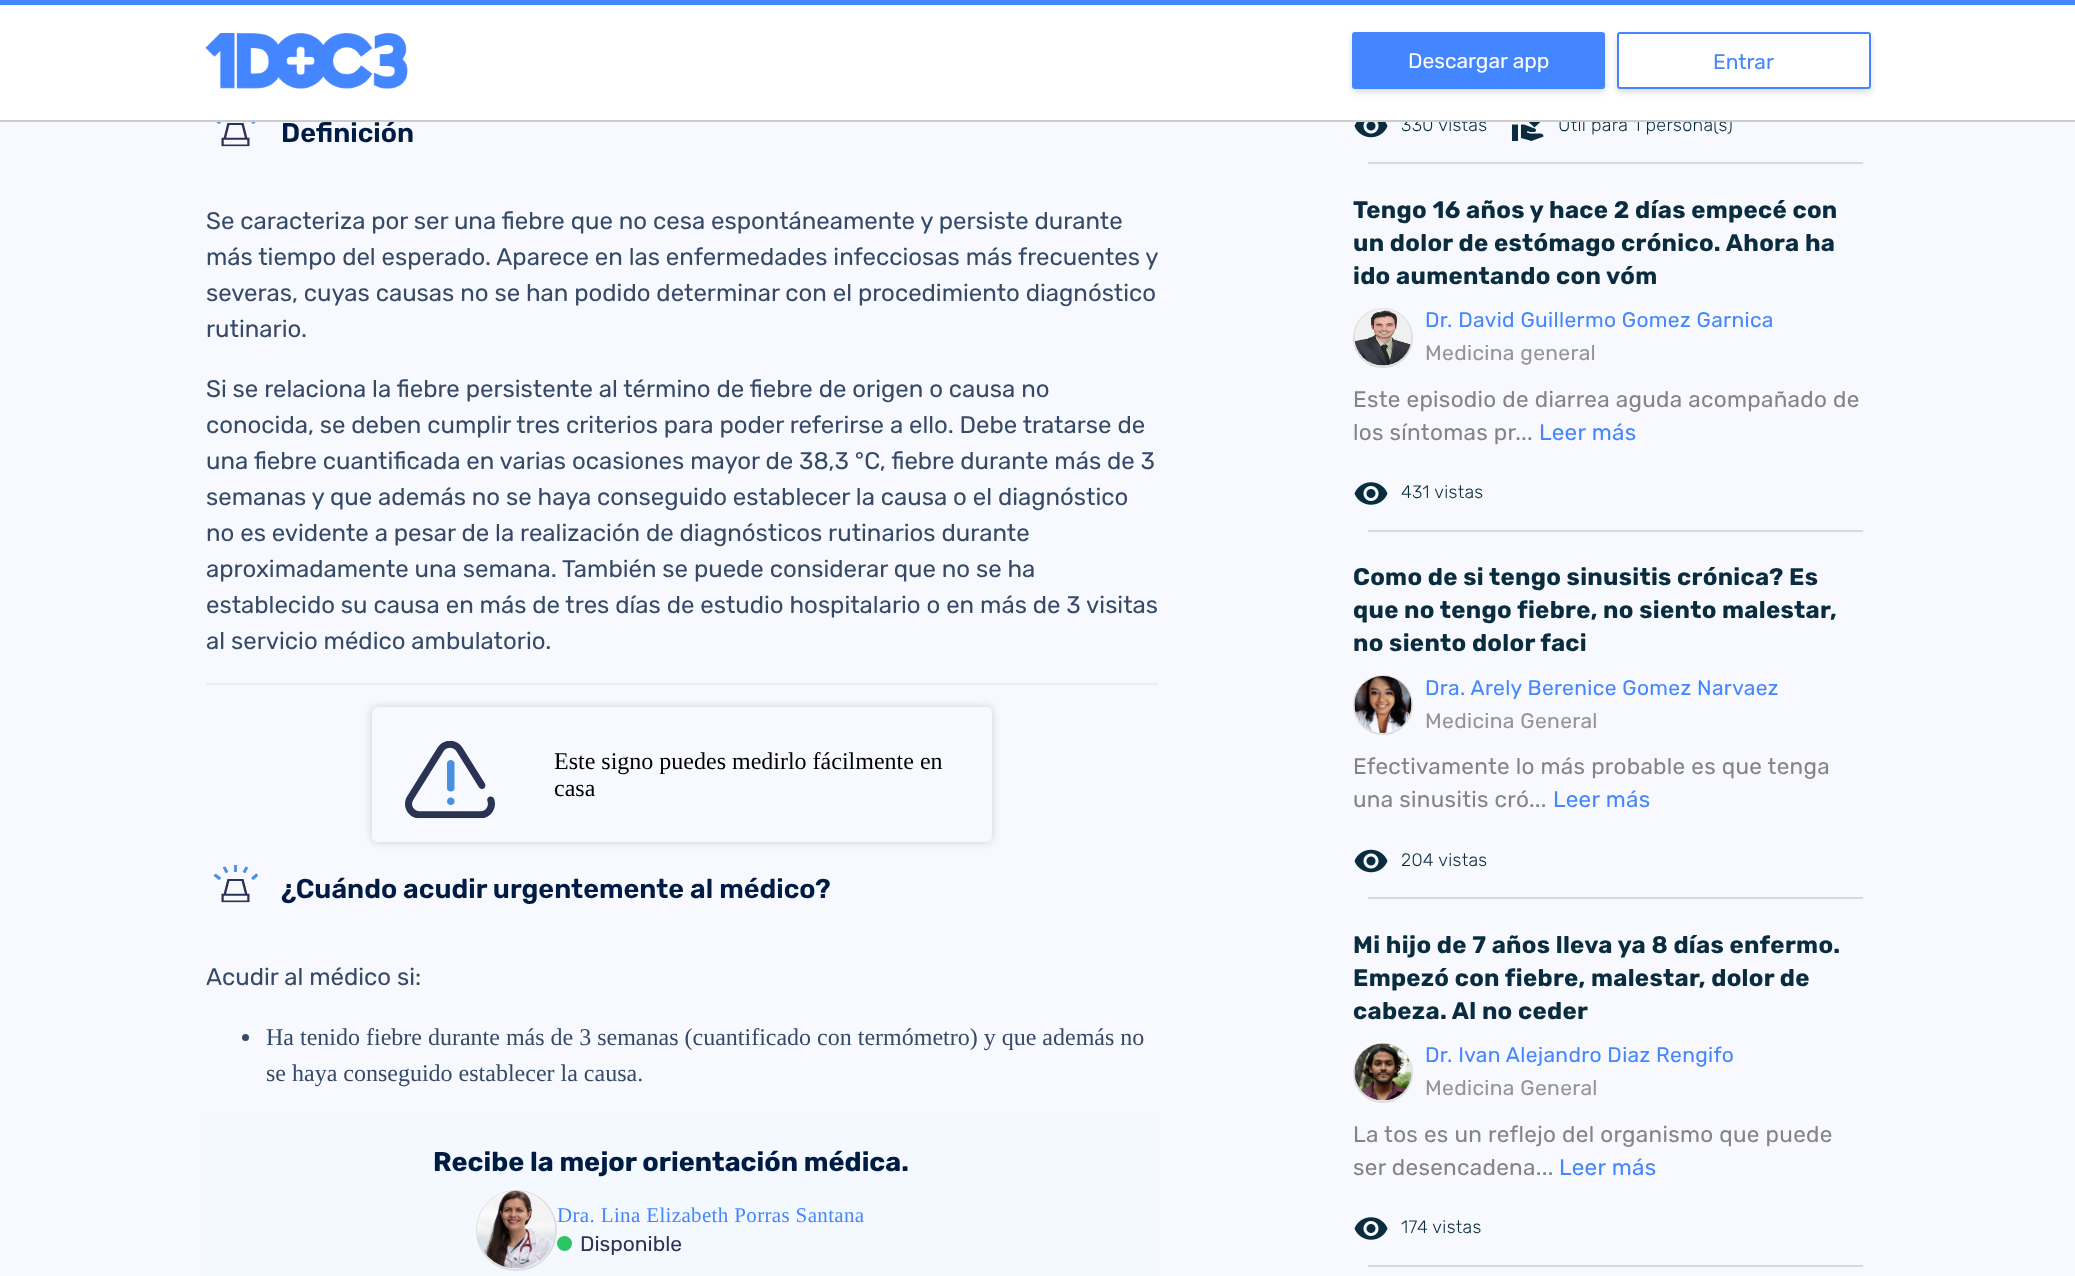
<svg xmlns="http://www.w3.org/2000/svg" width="2075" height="1276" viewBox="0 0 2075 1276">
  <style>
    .t1 { font: 300 18px Rubik; letter-spacing: 0.3px; fill: #0a2c3f; }
    .t2 { font: 600 27px Rubik; fill: #001c44; }
    .t3 { font: 21px Rubik; fill: #fff; }
    .t4 { font: 21px Rubik; fill: #4486ff; }
    .t5 { font: 24px Rubik; fill: #364a67; }
    .t6 { font: 24px Liberation Serif; fill: #000; }
    .t7 { font: 24px Liberation Serif; fill: #364a67; }
    .t8 { font: bold 27px Rubik; fill: #001c44; }
    .t9 { font: 21px Liberation Serif; letter-spacing: 0.35px; fill: #4486ff; }
    .t10 { font: 21px Rubik; fill: #2a3353; }
    .t11 { font: bold 24px Rubik; letter-spacing: 0.3px; fill: #0a2c3f; }
    .t12 { font: 21px Rubik; letter-spacing: 0.35px; fill: #4486ff; }
    .t13 { font: 21px Rubik; letter-spacing: 0.35px; fill: #959393; }
    .t14 { font: 22.5px Rubik; letter-spacing: 0.3px; fill: #858383; }
    .t15 { font: 22.5px Rubik; letter-spacing: 0.3px; fill: #4486ff; }
  </style>
  <defs>
    <clipPath id="clip1"><path d="M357 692H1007V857H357ZM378 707H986C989.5 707 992 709.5 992 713V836C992 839.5 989.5 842 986 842H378C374.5 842 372 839.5 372 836V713C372 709.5 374.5 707 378 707Z" clip-rule="evenodd"/></clipPath>
  </defs>
  <rect width="100%" height="100%" fill="#f7f9fe"/>
  <text x="1401" y="131" class="t1">330 vistas</text>
  <text x="1558" y="131" class="t1">Útil para 1 persona(s)</text>
  <rect x="0" y="5" width="2075" height="115" fill="#fff"/>
  <text x="281" y="142" class="t2">Definición</text>
  <rect x="0" y="120" width="2075" height="2" fill="#ccc"/>
  <rect x="0" y="0" width="2075" height="5" fill="#4486ff"/>
  <image x="205" y="33" width="203" height="56" href="images/1.png"/>
  <rect x="1352" y="35" width="253" height="57" rx="3" fill="#cacacab3" filter="blur(3px)"/>
  <rect x="1352" y="32" width="253" height="57" rx="3" fill="#4486ff"/>
  <text x="1408" y="68" class="t3">Descargar app</text>
  <rect x="1617" y="35" width="254" height="57" rx="3" fill="#cacacab3" filter="blur(3px)"/>
  <rect x="1618" y="33" width="252" height="55" rx="2" fill="#fff" stroke="#4486ff" stroke-width="2"/>
  <text x="1713" y="69" class="t4">Entrar</text>
  <image x="216" y="122" width="40" height="25" href="images/2.png"/>
  <text x="206" y="229" class="t5">Se caracteriza por ser una fiebre que no cesa espontáneamente y persiste durante</text>
  <text x="206" y="265" class="t5">más tiempo del esperado. Aparece en las enfermedades infecciosas más frecuentes y</text>
  <text x="206" y="301" class="t5">severas, cuyas causas no se han podido determinar con el procedimiento diagnóstico</text>
  <text x="206" y="337" class="t5">rutinario.</text>
  <text x="206" y="397" class="t5">Si se relaciona la fiebre persistente al término de fiebre de origen o causa no</text>
  <text x="206" y="433" class="t5">conocida, se deben cumplir tres criterios para poder referirse a ello. Debe tratarse de</text>
  <text x="206" y="469" class="t5">una fiebre cuantificada en varias ocasiones mayor de 38,3 °C, fiebre durante más de 3</text>
  <text x="206" y="505" class="t5">semanas y que además no se haya conseguido establecer la causa o el diagnóstico</text>
  <text x="206" y="541" class="t5">no es evidente a pesar de la realización de diagnósticos rutinarios durante</text>
  <text x="206" y="577" class="t5">aproximadamente una semana. También se puede considerar que no se ha</text>
  <text x="206" y="613" class="t5">establecido su causa en más de tres días de estudio hospitalario o en más de 3 visitas</text>
  <text x="206" y="649" class="t5">al servicio médico ambulatorio.</text>
  <rect x="206" y="683" width="952" height="2" fill="#eee"/>
  <g clip-path="url(#clip1)">
    <rect x="372" y="707" width="620" height="135" rx="6" fill="#0000002b" filter="blur(4.5px)"/>
  </g>
  <image x="405" y="741" width="90" height="78" href="images/3.png"/>
  <text x="554" y="769" class="t6">Este signo puedes medirlo fácilmente en</text>
  <text x="554" y="796" class="t6">casa</text>
  <image x="213" y="865" width="46" height="38" href="images/4.png"/>
  <text x="281" y="898" class="t2">¿Cuándo acudir urgentemente al médico?</text>
  <text x="206" y="985" class="t5">Acudir al médico si:</text>
  <circle cx="245.5" cy="1037.5" r="3.5" fill="#364a67"/>
  <text x="266" y="1045" class="t7">Ha tenido fiebre durante más de 3 semanas (cuantificado con termómetro) y que además no</text>
  <text x="266" y="1081" class="t7">se haya conseguido establecer la causa.</text>
  <rect x="206" y="1115" width="952" height="161" fill="#f4f9ff"/>
  <text x="433" y="1171" class="t8">Recibe la mejor orientación médica.</text>
  <circle cx="516.5" cy="1230.5" r="39.5" fill="none" stroke="#ddd" stroke-width="2"/>
  <image x="477" y="1190" width="78" height="79" href="images/5.png"/>
  <text x="557" y="1222" class="t9">Dra. Lina Elizabeth Porras Santana</text>
  <circle cx="564.5" cy="1243.5" r="7.5" fill="#2dc564"/>
  <text x="580" y="1251" class="t10">Disponible</text>
  <image x="1354" y="122" width="34" height="16" href="images/6.png"/>
  <image x="1511" y="122" width="33" height="19" href="images/7.png"/>
  <rect x="1368" y="162" width="495" height="2" fill="#dadada"/>
  <text x="1353" y="218" class="t11">Tengo 16 años y hace 2 días empecé con</text>
  <text x="1353" y="251" class="t11">un dolor de estómago crónico. Ahora ha</text>
  <text x="1353" y="284" class="t11">ido aumentando con vóm</text>
  <circle cx="1383" cy="338" r="29" fill="none" stroke="#ddd" stroke-width="2"/>
  <image x="1354" y="308" width="58" height="58" href="images/8.png"/>
  <text x="1425" y="327" class="t12">Dr. David Guillermo Gomez Garnica</text>
  <text x="1425" y="360" class="t13">Medicina general</text>
  <text x="1353" y="407" class="t14">Este episodio de diarrea aguda acompañado de</text>
  <text x="1353" y="440" class="t14">los síntomas pr...</text>
  <text x="1539" y="440" class="t15">Leer más</text>
  <image x="1354" y="482" width="34" height="23" href="images/9.png"/>
  <text x="1401" y="498" class="t1">431 vistas</text>
  <rect x="1368" y="530" width="495" height="2" fill="#dadada"/>
  <text x="1353" y="585" class="t11">Como de si tengo sinusitis crónica? Es</text>
  <text x="1353" y="618" class="t11">que no tengo fiebre, no siento malestar,</text>
  <text x="1353" y="651" class="t11">no siento dolor faci</text>
  <circle cx="1383" cy="705" r="29" fill="none" stroke="#ddd" stroke-width="2"/>
  <image x="1354" y="676" width="58" height="57" href="images/10.png"/>
  <text x="1425" y="695" class="t12">Dra. Arely Berenice Gomez Narvaez</text>
  <text x="1425" y="728" class="t13">Medicina General</text>
  <text x="1353" y="774" class="t14">Efectivamente lo más probable es que tenga</text>
  <text x="1353" y="807" class="t14">una sinusitis cró...</text>
  <text x="1553" y="807" class="t15">Leer más</text>
  <image x="1354" y="849" width="34" height="24" href="images/11.png"/>
  <text x="1401" y="866" class="t1">204 vistas</text>
  <rect x="1368" y="897" width="495" height="2" fill="#dadada"/>
  <text x="1353" y="953" class="t11">Mi hijo de 7 años lleva ya 8 días enfermo.</text>
  <text x="1353" y="986" class="t11">Empezó con fiebre, malestar, dolor de</text>
  <text x="1353" y="1019" class="t11">cabeza. Al no ceder</text>
  <circle cx="1383" cy="1073" r="29" fill="none" stroke="#ddd" stroke-width="2"/>
  <image x="1354" y="1043" width="58" height="58" href="images/12.png"/>
  <text x="1425" y="1062" class="t12">Dr. Ivan Alejandro Diaz Rengifo</text>
  <text x="1425" y="1095" class="t13">Medicina General</text>
  <text x="1353" y="1142" class="t14">La tos es un reflejo del organismo que puede</text>
  <text x="1353" y="1175" class="t14">ser desencadena...</text>
  <text x="1559" y="1175" class="t15">Leer más</text>
  <image x="1354" y="1217" width="34" height="23" href="images/9.png"/>
  <text x="1401" y="1233" class="t1">174 vistas</text>
  <rect x="1368" y="1265" width="495" height="2" fill="#dadada"/>
</svg>
